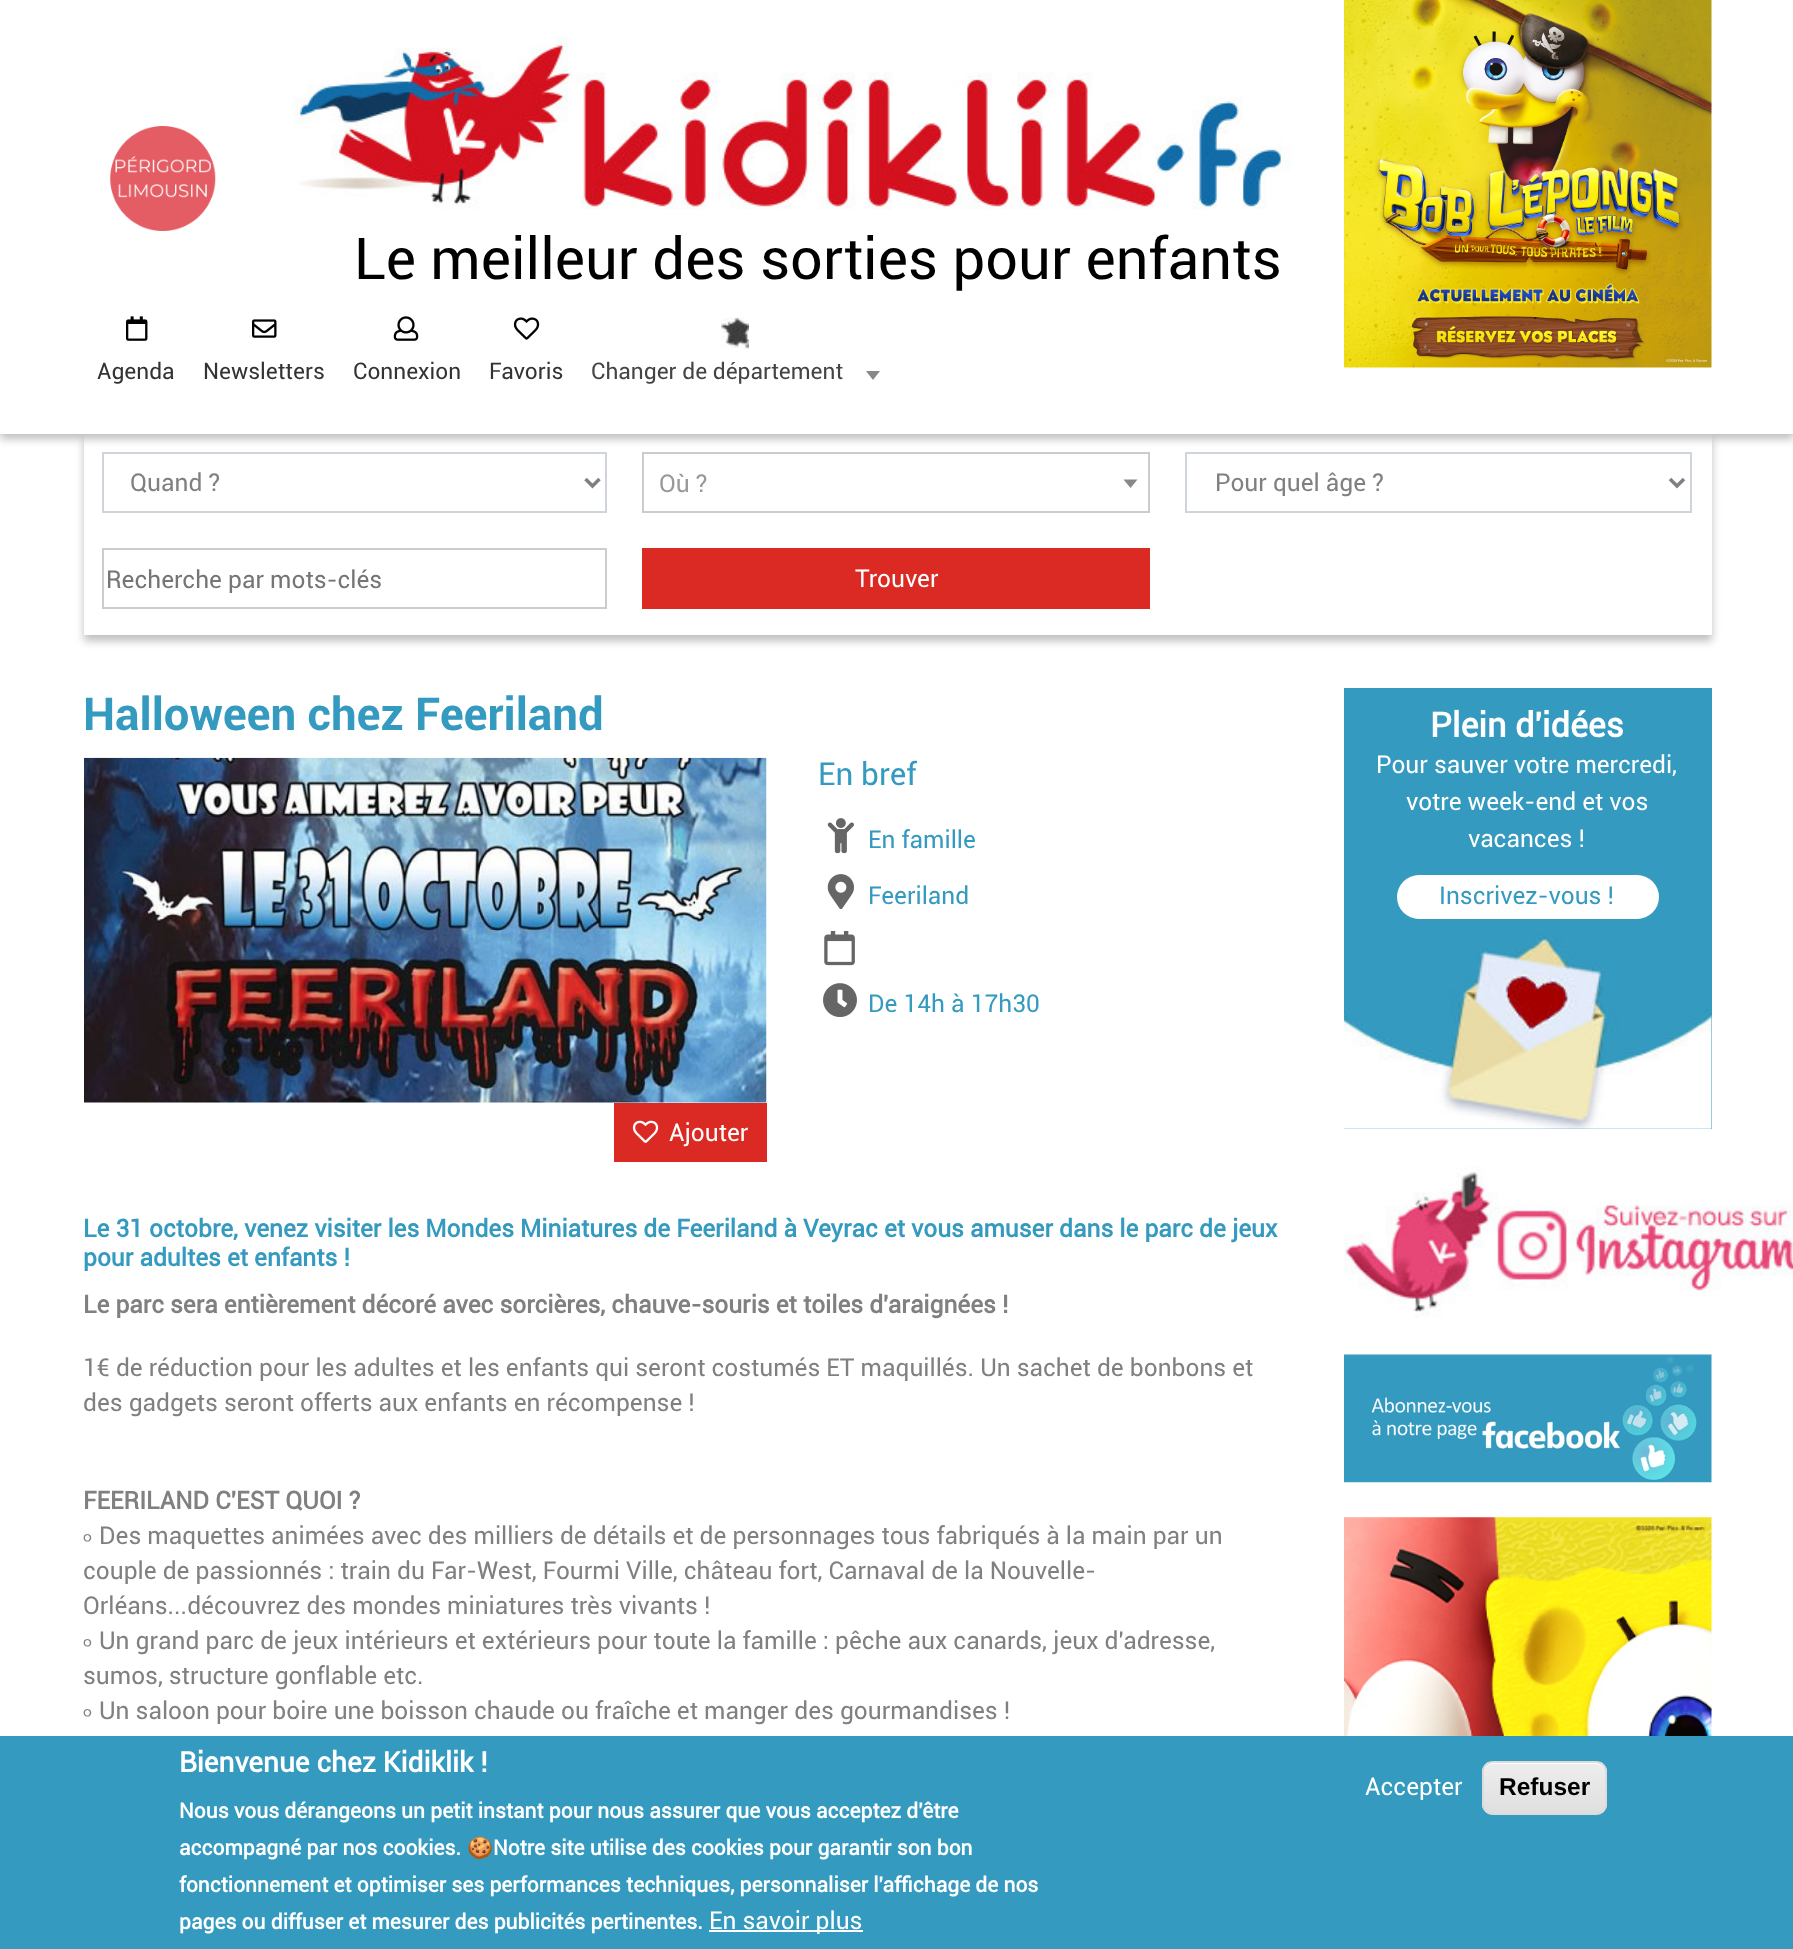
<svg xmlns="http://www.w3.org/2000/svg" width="1793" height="1949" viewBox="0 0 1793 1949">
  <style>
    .t1 { font: 57.75px Roboto; fill: #000; }
    .t2 { font: 22.75px Roboto; fill: #333; }
    .t3 { font: 22.75px Roboto; fill: #444; }
    .t4 { font: 24.5px Roboto; fill: #808080; }
    .t5 { font: 24.5px Roboto; fill: #999; }
    .t6 { font: 24.5px Roboto; fill: #757575; }
    .t7 { font: 24.5px Roboto; fill: #fff; }
    .t8 { font: bold 45.5px Roboto; fill: #349abf; }
    .t9 { font: 31.5px Roboto; fill: #349abf; }
    .t10 { font: 24.5px Roboto; fill: #349abf; }
    .t11 { font: bold 24.5px 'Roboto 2'; fill: #349abf; }
    .t12 { font: bold 24.5px 'Roboto 2'; fill: #808080; }
    .t13 { font: 24.5px Lohit Bengali; fill: #808080; }
    .t14 { font: bold 34.25px 'Roboto 2'; fill: #fff; }
    .t15 { font: bold 28px 'Roboto 2'; fill: #fff; }
    .t16 { font: bold 21px 'Roboto 2'; fill: #fff; }
    .t17 { font: bold 21px Noto Color Emoji; fill: #fff; }
    .t18 { font: bold 24.5px Liberation Sans; fill: #000; }
  </style>
  <defs>
    <clipPath id="clip1"><rect x="1482" y="1761" width="125" height="54" rx="11"/></clipPath>
    <linearGradient id="g1" gradientUnits="userSpaceOnUse" x1="1544" y1="1762" x2="1544" y2="1813"><stop offset="0.05" stop-color="#ededed"/><stop offset="1" stop-color="#dfdfdf"/></linearGradient>
  </defs>
  <rect width="100%" height="100%" fill="#fff"/>
  <rect x="84" y="439" width="1628" height="202" fill="#7d7d7d80" filter="blur(4.5px)"/>
  <rect x="84" y="434" width="1628" height="201" fill="#fff"/>
  <rect x="103" y="453" width="503" height="59" fill="none" stroke="#ced4da" stroke-width="2"/>
  <rect x="643" y="453" width="506" height="59" fill="none" stroke="#ccc" stroke-width="2"/>
  <rect x="1186" y="453" width="505" height="59" fill="none" stroke="#ced4da" stroke-width="2"/>
  <rect x="0" y="5" width="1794" height="434" fill="#7d7d7d80" filter="blur(4.5px)"/>
  <rect x="0" y="0" width="1793" height="434" fill="#fff"/>
  <image x="110" y="126" width="106" height="105" href="images/1.png"/>
  <image x="294" y="35" width="998" height="175" href="images/2.png"/>
  <text x="354" y="279" class="t1">Le meilleur des sorties pour enfants</text>
  <image x="126" y="316" width="22" height="25" href="images/3.png"/>
  <text x="97" y="379" class="t2">Agenda</text>
  <image x="252" y="319" width="25" height="19" href="images/4.png"/>
  <text x="203" y="379" class="t2">Newsletters</text>
  <image x="393" y="316" width="26" height="25" href="images/5.png"/>
  <text x="353" y="379" class="t2">Connexion</text>
  <image x="513" y="317" width="27" height="23" href="images/6.png"/>
  <text x="489" y="379" class="t2">Favoris</text>
  <image x="721" y="317" width="28" height="32" href="images/7.png"/>
  <text x="591" y="379" class="t3">Changer de département</text>
  <path d="M866 371H880L873 380Z" fill="#888"/>
  <image x="1344" y="0" width="368" height="368" href="images/8.png"/>
  <path d="M585.5 479L592.5 486L599.5 479" fill="none" stroke="#808080" stroke-width="3.5"/>
  <text x="130" y="491" class="t4">Quand ?</text>
  <text x="659" y="492" class="t5">Où ?</text>
  <path d="M1123.5 479.5H1137.5L1130.5 488Z" fill="#888"/>
  <path d="M1670 479L1677 486L1684 479" fill="none" stroke="#808080" stroke-width="3.5"/>
  <text x="1215" y="491" class="t4">Pour quel âge ?</text>
  <rect x="103" y="549" width="503" height="59" fill="none" stroke="#ccc" stroke-width="2"/>
  <text x="106" y="588" class="t6">Recherche par mots-clés</text>
  <rect x="642" y="548" width="508" height="61" fill="#db2a24"/>
  <text x="855" y="587" class="t7">Trouver</text>
  <text x="83" y="730" class="t8">Halloween chez Feeriland</text>
  <text x="818" y="785" class="t9">En bref</text>
  <image x="827" y="818" width="27" height="36" href="images/9.png"/>
  <text x="868" y="848" class="t10">En famille</text>
  <image x="827" y="874" width="27" height="36" href="images/10.png"/>
  <text x="868" y="904" class="t10">Feeriland</text>
  <image x="824" y="931" width="31" height="35" href="images/11.png"/>
  <image x="823" y="983" width="34" height="35" href="images/12.png"/>
  <text x="868" y="1012" class="t10">De 14h à 17h30</text>
  <image x="84" y="757" width="683" height="346" href="images/13.png"/>
  <rect x="614" y="1103" width="153" height="59" fill="#db2a24"/>
  <image x="632" y="1120" width="27" height="23" href="images/14.png"/>
  <text x="669" y="1141" class="t7">Ajouter</text>
  <text x="83" y="1237" class="t11">Le 31 octobre, venez visiter les Mondes Miniatures de Feeriland à Veyrac et vous amuser dans le parc de jeux</text>
  <text x="83" y="1266" class="t11">pour adultes et enfants !</text>
  <text x="83" y="1313" class="t12">Le parc sera entièrement décoré avec sorcières, chauve-souris et toiles d'araignées !</text>
  <text x="83" y="1376" class="t4">1€ de réduction pour les adultes et les enfants qui seront costumés ET maquillés. Un sachet de bonbons et</text>
  <text x="83" y="1411" class="t4">des gadgets seront offerts aux enfants en récompense !</text>
  <text x="83" y="1509" class="t12">FEERILAND C'EST QUOI ?</text>
  <text x="83" y="1544" class="t13">৹</text>
  <text x="99" y="1544" class="t4">Des maquettes animées avec des milliers de détails et de personnages tous fabriqués à la main par un</text>
  <text x="83" y="1579" class="t4">couple de passionnés : train du Far-West, Fourmi Ville, château fort, Carnaval de la Nouvelle-</text>
  <text x="83" y="1614" class="t4">Orléans...découvrez des mondes miniatures très vivants !</text>
  <text x="83" y="1649" class="t13">৹</text>
  <text x="99" y="1649" class="t4">Un grand parc de jeux intérieurs et extérieurs pour toute la famille : pêche aux canards, jeux d'adresse,</text>
  <text x="83" y="1684" class="t4">sumos, structure gonflable etc.</text>
  <text x="83" y="1719" class="t13">৹</text>
  <text x="99" y="1719" class="t4">Un saloon pour boire une boisson chaude ou fraîche et manger des gourmandises !</text>
  <rect x="1344" y="688" width="368" height="441" fill="#349abf"/>
  <image x="1344" y="934" width="368" height="195" href="images/15.png"/>
  <text x="1430" y="737" class="t14">Plein d'idées</text>
  <text x="1376" y="773" class="t7">Pour sauver votre mercredi,</text>
  <text x="1406" y="810" class="t7">votre week-end et vos</text>
  <text x="1468" y="847" class="t7">vacances !</text>
  <rect x="1397" y="875" width="262" height="44" rx="22" fill="#fff"/>
  <text x="1439" y="904" class="t10">Inscrivez-vous !</text>
  <image x="1344" y="1166" width="449" height="152" href="images/16.png"/>
  <image x="1344" y="1354" width="368" height="129" href="images/17.png"/>
  <image x="1344" y="1517" width="368" height="219" href="images/18.png"/>
  <rect x="0" y="1736" width="1793" height="213" fill="#349abf"/>
  <text x="179" y="1772" class="t15">Bienvenue chez Kidiklik !</text>
  <text x="179" y="1818" class="t16">Nous vous dérangeons un petit instant pour nous assurer que vous acceptez d'être</text>
  <text x="179" y="1855" class="t16">accompagné par nos cookies.</text>
  <text x="467" y="1855" class="t17">🍪</text>
  <text x="493" y="1855" class="t16">Notre site utilise des cookies pour garantir son bon</text>
  <text x="179" y="1892" class="t16">fonctionnement et optimiser ses performances techniques, personnaliser l'affichage de nos</text>
  <text x="179" y="1929" class="t16">pages ou diffuser et mesurer des publicités pertinentes.</text>
  <rect x="709" y="1930" width="154" height="2" fill="#fff"/>
  <text x="709" y="1929" class="t7">En savoir plus</text>
  <text x="1365" y="1795" class="t7">Accepter</text>
  <g clip-path="url(#clip1)">
    <rect x="1482" y="1762" width="125" height="51" fill="url(#g1)"/>
  </g>
  <path d="M1493 1764H1596C1601 1764 1605 1768 1605 1773C1605 1758 1590 1762 1579 1762H1510C1499 1762 1484 1758 1484 1773C1484 1768 1488 1764 1493 1764Z" fill="#fff"/>
  <rect x="1483" y="1762" width="123" height="52" rx="10" fill="none" stroke="#dcdcdc" stroke-width="2"/>
  <text x="1499" y="1795" class="t18">Refuser</text>
</svg>
